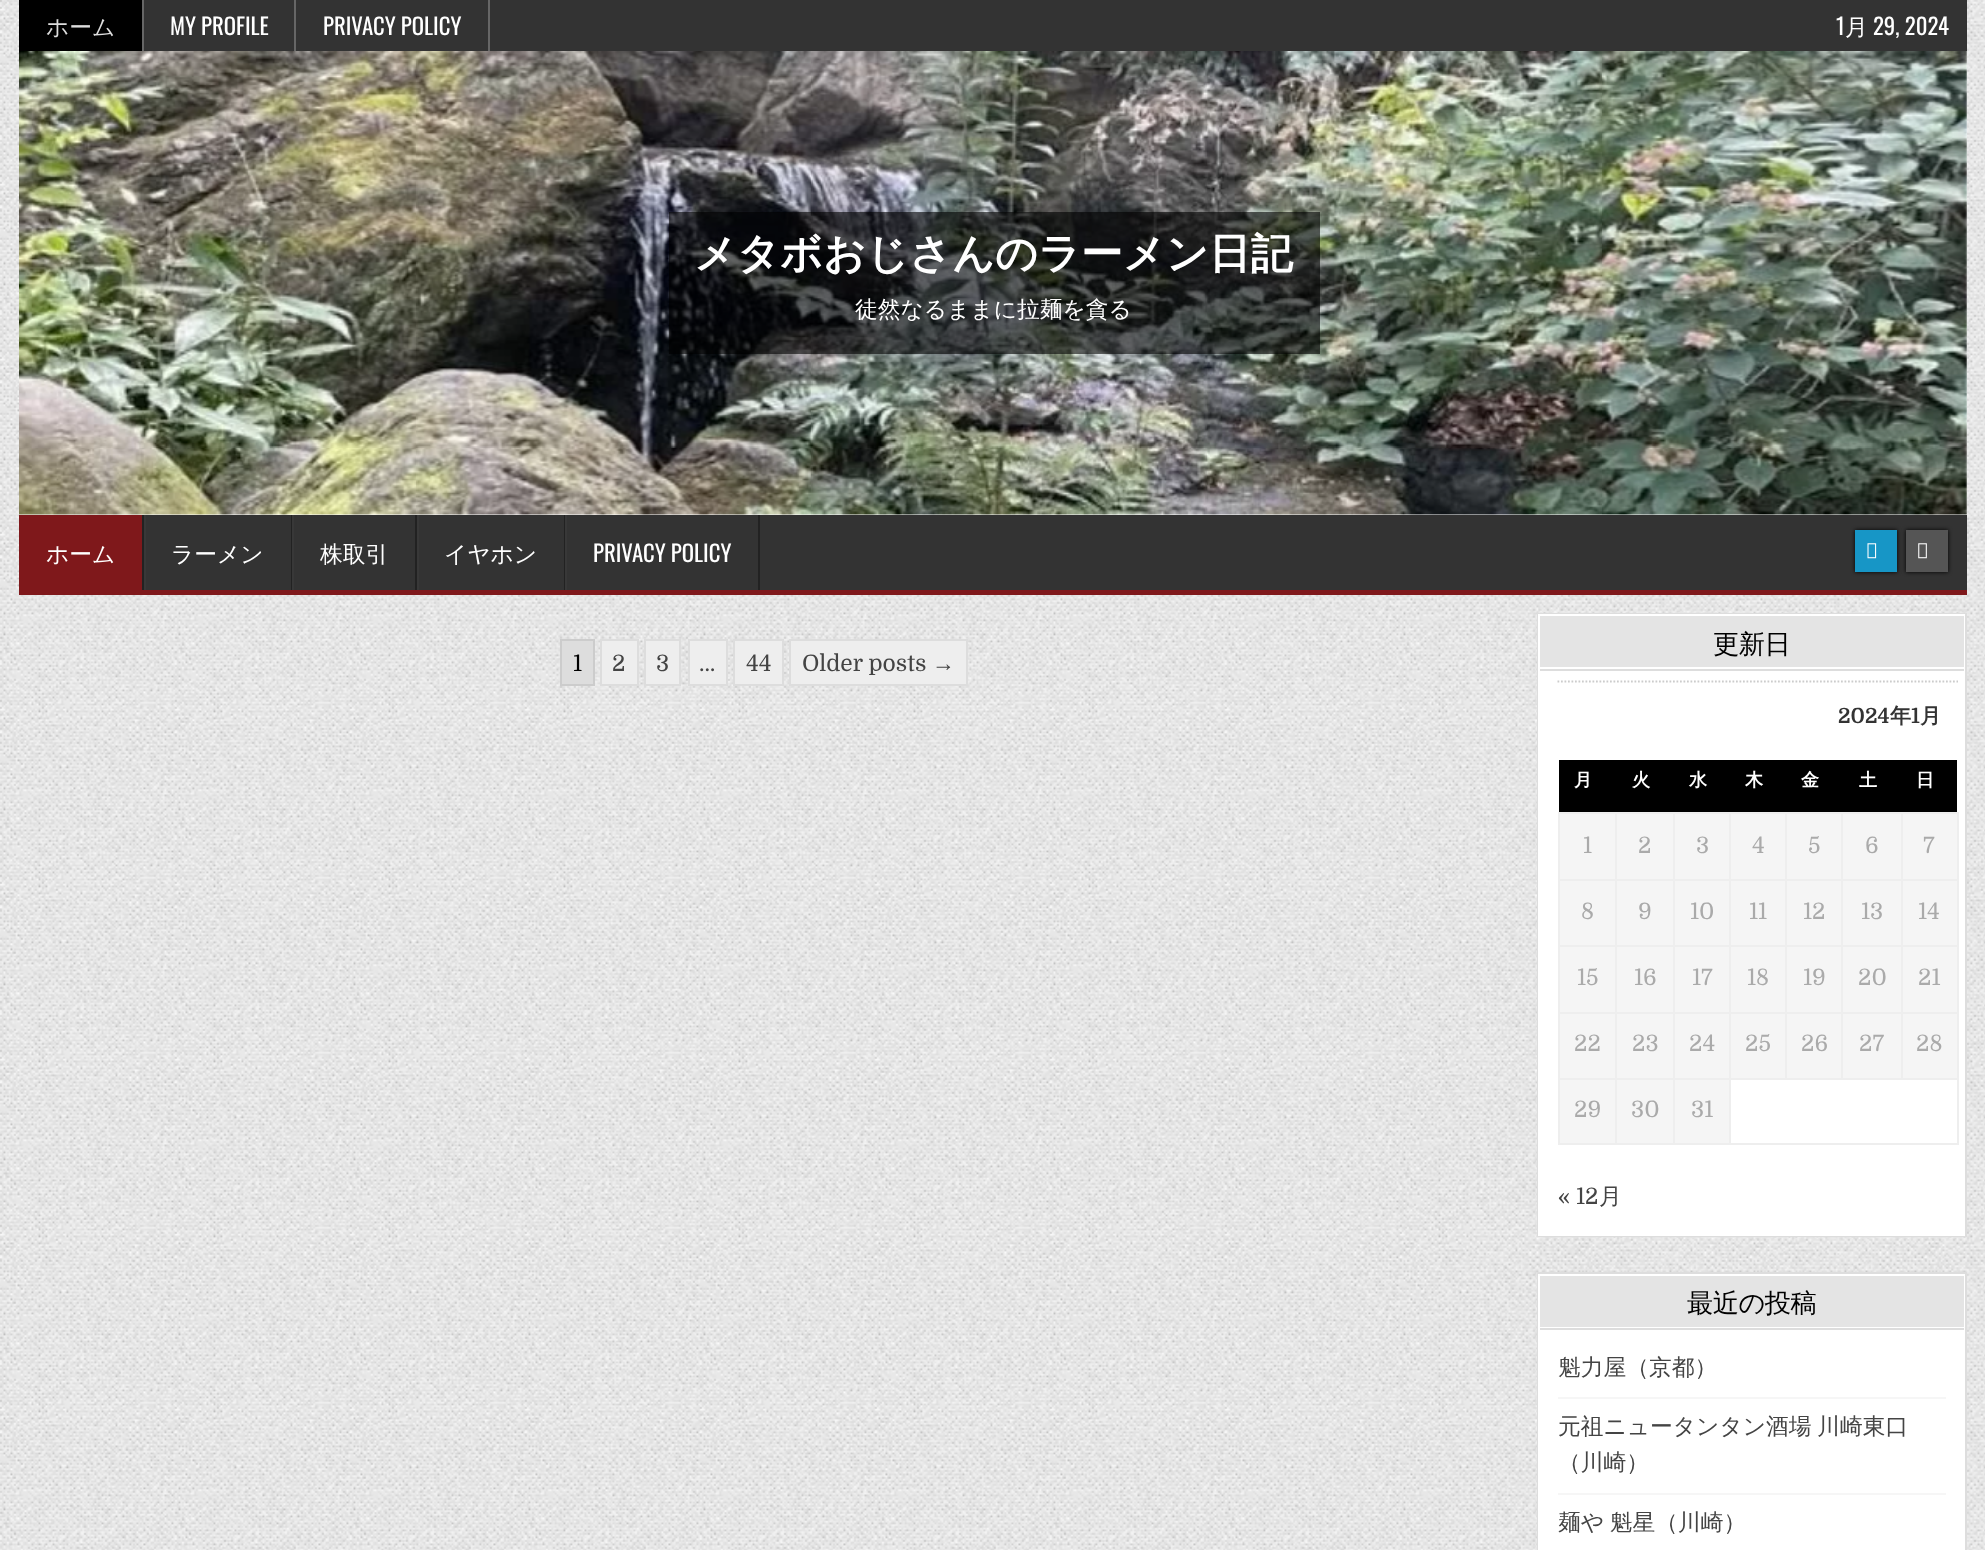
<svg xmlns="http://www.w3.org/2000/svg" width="1985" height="1550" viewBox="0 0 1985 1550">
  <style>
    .t1 { font: 500 22.75px WenQuanYi Zen Hei; fill: #ddd; }
    .t2 { font: 22.75px Oswald; fill: #fff; }
    .t3 { font: 500 22.75px WenQuanYi Zen Hei; fill: #fff; }
    .t4 { font: bold 42px WenQuanYi Zen Hei; fill: #fff; }
    .t5 { font: 22.75px Domine; fill: #000; }
    .t6 { font: 22.75px Domine; fill: #444; }
    .t7 { font: 22.75px Liberation Sans; fill: #444; }
    .t8 { font: 500 26.25px WenQuanYi Zen Hei; letter-spacing: -0.5px; fill: #000; }
    .t9 { font: bold 21px Domine; fill: #333; }
    .t10 { font: bold 21px WenQuanYi Zen Hei; fill: #333; }
    .t11 { font: bold 18px WenQuanYi Zen Hei; fill: #fff; }
    .t12 { font: 22.75px Domine; fill: #aaa; }
    .t13 { font: 500 22.75px WenQuanYi Zen Hei; fill: #444; }
  </style>
  <rect width="100%" height="100%" fill="#fff"/>
  <image x="0" y="0" width="1985" height="1550" href="images/1.png"/>
  <rect x="144" y="0" width="1823" height="51" fill="#333"/>
  <rect x="19" y="0" width="123" height="51" fill="#000"/>
  <rect x="142" y="0" width="2" height="51" fill="#666"/>
  <text x="46" y="35" class="t1">ホーム</text>
  <rect x="294" y="0" width="2" height="51" fill="#666"/>
  <text x="170" y="35" class="t2">MY PROFILE</text>
  <rect x="488" y="0" width="2" height="51" fill="#666"/>
  <text x="323" y="35" class="t2">PRIVACY POLICY</text>
  <text x="1836" y="35" class="t2">1</text>
  <text x="1845" y="35" class="t3">月</text>
  <text x="1873" y="35" class="t2">29, 2024</text>
  <rect x="19" y="51" width="1948" height="464" fill="#fff"/>
  <image x="19" y="51" width="1948" height="464" href="images/2.png"/>
  <rect x="669" y="212" width="651" height="142" fill="#00000099"/>
  <text x="694" y="268" class="t4">メタボおじさんのラーメン日記</text>
  <text x="855" y="317" class="t3">徒然なるままに拉麺を貪る</text>
  <rect x="146" y="515" width="1821" height="75" fill="#333"/>
  <rect x="19" y="590" width="1948" height="5" fill="#7f181b"/>
  <rect x="19" y="515" width="123" height="75" fill="#7f181b"/>
  <rect x="142" y="515" width="2" height="75" fill="#222"/>
  <text x="46" y="562" class="t3">ホーム</text>
  <rect x="291" y="515" width="1" height="75" fill="#222"/>
  <rect x="144" y="515" width="2" height="75" fill="#383838"/>
  <text x="171" y="562" class="t3">ラーメン</text>
  <rect x="415" y="515" width="2" height="75" fill="#222"/>
  <rect x="292" y="515" width="2" height="75" fill="#383838"/>
  <text x="320" y="562" class="t3">株取引</text>
  <rect x="564" y="515" width="1" height="75" fill="#222"/>
  <rect x="417" y="515" width="2" height="75" fill="#383838"/>
  <text x="444" y="562" class="t3">イヤホン</text>
  <rect x="758" y="515" width="2" height="75" fill="#222"/>
  <rect x="565" y="515" width="2" height="75" fill="#383838"/>
  <text x="593" y="562" class="t2">PRIVACY POLICY</text>
  <rect x="1855" y="530" width="42" height="42" fill="#000" filter="blur(2px)"/>
  <rect x="1855" y="530" width="42" height="42" fill="#1796c6"/>
  <image x="1867" y="543" width="10" height="16" href="images/3.png"/>
  <rect x="1906" y="530" width="42" height="42" fill="#000" filter="blur(2px)"/>
  <rect x="1906" y="530" width="42" height="42" fill="#555"/>
  <image x="1918" y="543" width="9" height="16" href="images/4.png"/>
  <rect x="561" y="640" width="33" height="45" fill="#ddd" stroke="#ccc" stroke-width="2"/>
  <text x="573" y="671" class="t5">1</text>
  <rect x="601" y="640" width="37" height="45" fill="#eee" stroke="#ddd" stroke-width="2"/>
  <text x="612" y="671" class="t6">2</text>
  <rect x="645" y="640" width="35" height="45" fill="#eee" stroke="#ddd" stroke-width="2"/>
  <text x="656" y="671" class="t6">3</text>
  <rect x="689" y="640" width="38" height="45" fill="#eee" stroke="#ddd" stroke-width="2"/>
  <text x="699" y="671" class="t6">…</text>
  <rect x="734" y="640" width="49" height="45" fill="#eee" stroke="#ddd" stroke-width="2"/>
  <text x="746" y="671" class="t6">44</text>
  <rect x="790" y="640" width="177" height="45" fill="#eee" stroke="#ddd" stroke-width="2"/>
  <text x="802" y="671" class="t6">Older posts</text>
  <text x="932" y="671" class="t7">→</text>
  <rect x="1540" y="671" width="423" height="563" fill="#fff"/>
  <rect x="1538" y="614" width="428" height="622" fill="none" stroke="#ddd" stroke-width="2"/>
  <rect x="1539" y="615" width="425" height="620" fill="none" stroke="#fff" stroke-width="2"/>
  <rect x="1540" y="616" width="424" height="51" fill="#e4e4e4"/>
  <rect x="1540" y="669" width="424" height="2" fill="#ddd"/>
  <rect x="1540" y="667" width="424" height="2" fill="#fff"/>
  <text x="1713" y="653" class="t8">更新日</text>
  <path d="M1557.5 681.5H1958" fill="none" stroke="#ccc" stroke-width="1.8" stroke-dasharray="1.75 1.75"/>
  <text x="1838" y="723" class="t9">2024</text>
  <text x="1890" y="723" class="t10">年</text>
  <text x="1911" y="723" class="t9">1</text>
  <text x="1920" y="723" class="t10">月</text>
  <rect x="1559" y="760" width="398" height="52" fill="#000"/>
  <text x="1574" y="786" class="t11">月</text>
  <text x="1632" y="786" class="t11">火</text>
  <text x="1689" y="786" class="t11">水</text>
  <text x="1745" y="786" class="t11">木</text>
  <text x="1801" y="786" class="t11">金</text>
  <text x="1859" y="786" class="t11">土</text>
  <text x="1916" y="786" class="t11">日</text>
  <rect x="1560" y="814" width="55" height="65" fill="#f5f5f5"/>
  <rect x="1901" y="812" width="57" height="2" fill="#eee"/>
  <rect x="1901" y="879" width="57" height="2" fill="#eee"/>
  <rect x="1901" y="945" width="57" height="2" fill="#eee"/>
  <rect x="1901" y="1012" width="57" height="2" fill="#eee"/>
  <rect x="1729" y="1078" width="229" height="2" fill="#eee"/>
  <rect x="1901" y="1012" width="2" height="68" fill="#eee"/>
  <rect x="1841" y="1012" width="61" height="2" fill="#eee"/>
  <rect x="1901" y="945" width="2" height="68" fill="#eee"/>
  <rect x="1841" y="945" width="61" height="2" fill="#eee"/>
  <rect x="1901" y="879" width="2" height="68" fill="#eee"/>
  <rect x="1841" y="879" width="61" height="2" fill="#eee"/>
  <rect x="1901" y="812" width="2" height="68" fill="#eee"/>
  <rect x="1841" y="812" width="61" height="2" fill="#eee"/>
  <rect x="1841" y="1012" width="2" height="68" fill="#eee"/>
  <rect x="1785" y="1012" width="58" height="2" fill="#eee"/>
  <rect x="1841" y="945" width="2" height="68" fill="#eee"/>
  <rect x="1785" y="945" width="58" height="2" fill="#eee"/>
  <rect x="1841" y="879" width="2" height="68" fill="#eee"/>
  <rect x="1785" y="879" width="58" height="2" fill="#eee"/>
  <rect x="1841" y="812" width="2" height="68" fill="#eee"/>
  <rect x="1785" y="812" width="58" height="2" fill="#eee"/>
  <rect x="1785" y="1012" width="2" height="68" fill="#eee"/>
  <rect x="1729" y="1012" width="58" height="2" fill="#eee"/>
  <rect x="1785" y="945" width="2" height="68" fill="#eee"/>
  <rect x="1729" y="945" width="58" height="2" fill="#eee"/>
  <rect x="1785" y="879" width="2" height="68" fill="#eee"/>
  <rect x="1729" y="879" width="58" height="2" fill="#eee"/>
  <rect x="1785" y="812" width="2" height="68" fill="#eee"/>
  <rect x="1729" y="812" width="58" height="2" fill="#eee"/>
  <rect x="1957" y="1078" width="2" height="67" fill="#eee"/>
  <rect x="1729" y="1143" width="229" height="2" fill="#eee"/>
  <rect x="1729" y="1078" width="2" height="67" fill="#eee"/>
  <rect x="1673" y="1078" width="58" height="2" fill="#eee"/>
  <rect x="1729" y="1012" width="2" height="68" fill="#eee"/>
  <rect x="1673" y="1012" width="58" height="2" fill="#eee"/>
  <rect x="1729" y="945" width="2" height="68" fill="#eee"/>
  <rect x="1673" y="945" width="58" height="2" fill="#eee"/>
  <rect x="1729" y="879" width="2" height="68" fill="#eee"/>
  <rect x="1673" y="879" width="58" height="2" fill="#eee"/>
  <rect x="1729" y="812" width="2" height="68" fill="#eee"/>
  <rect x="1673" y="812" width="58" height="2" fill="#eee"/>
  <rect x="1673" y="1143" width="58" height="2" fill="#eee"/>
  <rect x="1673" y="1078" width="2" height="67" fill="#eee"/>
  <rect x="1615" y="1078" width="60" height="2" fill="#eee"/>
  <rect x="1673" y="1012" width="2" height="68" fill="#eee"/>
  <rect x="1615" y="1012" width="60" height="2" fill="#eee"/>
  <rect x="1673" y="945" width="2" height="68" fill="#eee"/>
  <rect x="1615" y="945" width="60" height="2" fill="#eee"/>
  <rect x="1673" y="879" width="2" height="68" fill="#eee"/>
  <rect x="1615" y="879" width="60" height="2" fill="#eee"/>
  <rect x="1673" y="812" width="2" height="68" fill="#eee"/>
  <rect x="1615" y="812" width="60" height="2" fill="#eee"/>
  <rect x="1615" y="1143" width="60" height="2" fill="#eee"/>
  <rect x="1615" y="1078" width="2" height="67" fill="#eee"/>
  <rect x="1558" y="1078" width="59" height="2" fill="#eee"/>
  <rect x="1615" y="1012" width="2" height="68" fill="#eee"/>
  <rect x="1558" y="1012" width="59" height="2" fill="#eee"/>
  <rect x="1615" y="945" width="2" height="68" fill="#eee"/>
  <rect x="1558" y="945" width="59" height="2" fill="#eee"/>
  <rect x="1615" y="879" width="2" height="68" fill="#eee"/>
  <rect x="1558" y="879" width="59" height="2" fill="#eee"/>
  <rect x="1615" y="812" width="2" height="68" fill="#eee"/>
  <rect x="1558" y="812" width="59" height="2" fill="#eee"/>
  <rect x="1558" y="1143" width="59" height="2" fill="#eee"/>
  <rect x="1558" y="1078" width="2" height="67" fill="#eee"/>
  <rect x="1558" y="1012" width="2" height="68" fill="#eee"/>
  <rect x="1558" y="945" width="2" height="68" fill="#eee"/>
  <rect x="1558" y="879" width="2" height="68" fill="#eee"/>
  <rect x="1558" y="812" width="2" height="68" fill="#eee"/>
  <text x="1583" y="853" class="t12">1</text>
  <rect x="1617" y="814" width="56" height="65" fill="#f5f5f5"/>
  <text x="1638" y="853" class="t12">2</text>
  <rect x="1675" y="814" width="54" height="65" fill="#f5f5f5"/>
  <text x="1696" y="853" class="t12">3</text>
  <rect x="1731" y="814" width="54" height="65" fill="#f5f5f5"/>
  <text x="1752" y="853" class="t12">4</text>
  <rect x="1787" y="814" width="54" height="65" fill="#f5f5f5"/>
  <text x="1808" y="853" class="t12">5</text>
  <rect x="1843" y="814" width="58" height="65" fill="#f5f5f5"/>
  <text x="1865" y="853" class="t12">6</text>
  <rect x="1903" y="814" width="54" height="65" fill="#f5f5f5"/>
  <rect x="1957" y="1012" width="2" height="68" fill="#eee"/>
  <rect x="1957" y="945" width="2" height="68" fill="#eee"/>
  <rect x="1957" y="879" width="2" height="68" fill="#eee"/>
  <rect x="1957" y="812" width="2" height="68" fill="#eee"/>
  <text x="1923" y="853" class="t12">7</text>
  <rect x="1560" y="881" width="55" height="64" fill="#f5f5f5"/>
  <text x="1581" y="919" class="t12">8</text>
  <rect x="1617" y="881" width="56" height="64" fill="#f5f5f5"/>
  <text x="1638" y="919" class="t12">9</text>
  <rect x="1675" y="881" width="54" height="64" fill="#f5f5f5"/>
  <text x="1690" y="919" class="t12">10</text>
  <rect x="1731" y="881" width="54" height="64" fill="#f5f5f5"/>
  <text x="1749" y="919" class="t12">11</text>
  <rect x="1787" y="881" width="54" height="64" fill="#f5f5f5"/>
  <text x="1803" y="919" class="t12">12</text>
  <rect x="1843" y="881" width="58" height="64" fill="#f5f5f5"/>
  <text x="1861" y="919" class="t12">13</text>
  <rect x="1903" y="881" width="54" height="64" fill="#f5f5f5"/>
  <text x="1918" y="919" class="t12">14</text>
  <rect x="1560" y="947" width="55" height="65" fill="#f5f5f5"/>
  <text x="1577" y="985" class="t12">15</text>
  <rect x="1617" y="947" width="56" height="65" fill="#f5f5f5"/>
  <text x="1634" y="985" class="t12">16</text>
  <rect x="1675" y="947" width="54" height="65" fill="#f5f5f5"/>
  <text x="1692" y="985" class="t12">17</text>
  <rect x="1731" y="947" width="54" height="65" fill="#f5f5f5"/>
  <text x="1747" y="985" class="t12">18</text>
  <rect x="1787" y="947" width="54" height="65" fill="#f5f5f5"/>
  <text x="1803" y="985" class="t12">19</text>
  <rect x="1843" y="947" width="58" height="65" fill="#f5f5f5"/>
  <text x="1858" y="985" class="t12">20</text>
  <rect x="1903" y="947" width="54" height="65" fill="#f5f5f5"/>
  <text x="1918" y="985" class="t12">21</text>
  <rect x="1560" y="1014" width="55" height="64" fill="#f5f5f5"/>
  <text x="1574" y="1051" class="t12">22</text>
  <rect x="1617" y="1014" width="56" height="64" fill="#f5f5f5"/>
  <text x="1632" y="1051" class="t12">23</text>
  <rect x="1675" y="1014" width="54" height="64" fill="#f5f5f5"/>
  <text x="1689" y="1051" class="t12">24</text>
  <rect x="1731" y="1014" width="54" height="64" fill="#f5f5f5"/>
  <text x="1745" y="1051" class="t12">25</text>
  <rect x="1787" y="1014" width="54" height="64" fill="#f5f5f5"/>
  <text x="1801" y="1051" class="t12">26</text>
  <rect x="1843" y="1014" width="58" height="64" fill="#f5f5f5"/>
  <text x="1859" y="1051" class="t12">27</text>
  <rect x="1903" y="1014" width="54" height="64" fill="#f5f5f5"/>
  <text x="1916" y="1051" class="t12">28</text>
  <rect x="1560" y="1080" width="55" height="63" fill="#f5f5f5"/>
  <text x="1574" y="1117" class="t12">29</text>
  <rect x="1617" y="1080" width="56" height="63" fill="#f5f5f5"/>
  <text x="1631" y="1117" class="t12">30</text>
  <rect x="1675" y="1080" width="54" height="63" fill="#f5f5f5"/>
  <text x="1691" y="1117" class="t12">31</text>
  <text x="1558" y="1204" class="t6">« 12</text>
  <text x="1599" y="1204" class="t13">月</text>
  <rect x="1540" y="1330" width="423" height="220" fill="#fff"/>
  <rect x="1538" y="1273" width="428" height="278" fill="none" stroke="#ddd" stroke-width="2"/>
  <rect x="1539" y="1275" width="425" height="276" fill="none" stroke="#fff" stroke-width="2"/>
  <rect x="1540" y="1276" width="424" height="51" fill="#e4e4e4"/>
  <rect x="1540" y="1328" width="424" height="2" fill="#ddd"/>
  <rect x="1540" y="1327" width="424" height="1" fill="#fff"/>
  <text x="1687" y="1312" class="t8">最近の投稿</text>
  <rect x="1558" y="1397" width="388" height="2" fill="#f6f6f6"/>
  <text x="1558" y="1375" class="t13">魁力屋（京都）</text>
  <rect x="1558" y="1493" width="388" height="2" fill="#f6f6f6"/>
  <text x="1558" y="1434" word-spacing="-1" class="t13">元祖ニュータンタン酒場 川崎東口</text>
  <text x="1558" y="1470" class="t13">（川崎）</text>
  <text x="1558" y="1530" word-spacing="-1" class="t13">麺や 魁星（川崎）</text>
</svg>
